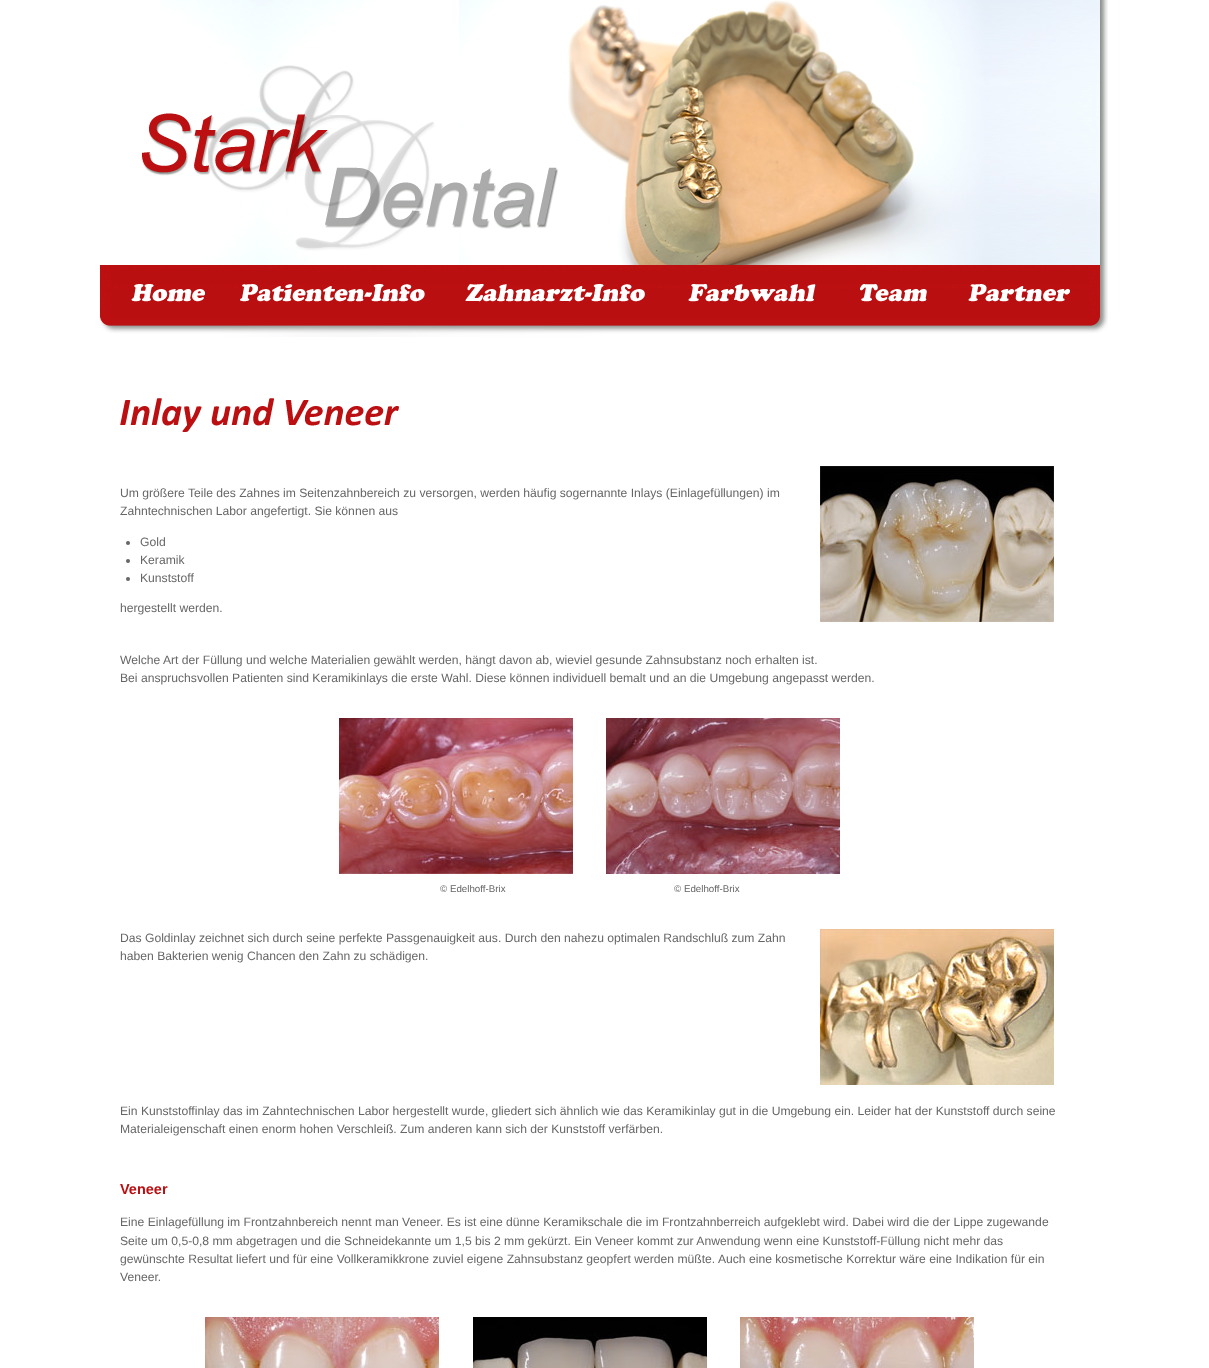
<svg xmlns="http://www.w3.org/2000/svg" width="1209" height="1368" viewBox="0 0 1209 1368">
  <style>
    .t1 { font: 12.15px Liberation Sans; fill: #666; }
    .t2 { font: 9.75px Liberation Sans; fill: #666; }
    .t3 { font: bold 14.5px Liberation Sans; fill: #bb0f11; }
  </style>
  <rect width="100%" height="100%" fill="#fff"/>
  <image x="160" y="0" width="948" height="265" href="images/1.png"/>
  <image x="142" y="65" width="417" height="186" href="images/2.png"/>
  <image x="100" y="265" width="1008" height="72" href="images/3.png"/>
  <image x="131" y="284" width="74" height="18" href="images/4.png"/>
  <image x="240" y="284" width="185" height="18" href="images/5.png"/>
  <image x="465" y="284" width="180" height="18" href="images/6.png"/>
  <image x="688" y="284" width="128" height="18" href="images/7.png"/>
  <image x="860" y="284" width="67" height="18" href="images/8.png"/>
  <image x="968" y="284" width="102" height="18" href="images/9.png"/>
  <image x="120" y="398" width="279" height="34" href="images/10.png"/>
  <text x="120" y="497" class="t1">Um größere Teile des Zahnes im Seitenzahnbereich zu versorgen, werden häufig sogernannte Inlays (Einlagefüllungen) im</text>
  <text x="120" y="515" class="t1">Zahntechnischen Labor angefertigt. Sie können aus</text>
  <circle cx="128" cy="543" r="2" fill="#666"/>
  <text x="140" y="546" class="t1">Gold</text>
  <circle cx="128" cy="561" r="2" fill="#666"/>
  <text x="140" y="564" class="t1">Keramik</text>
  <circle cx="128" cy="579" r="2" fill="#666"/>
  <text x="140" y="582" class="t1">Kunststoff</text>
  <text x="120" y="612" class="t1">hergestellt werden.</text>
  <image x="820" y="466" width="234" height="156" href="images/11.png"/>
  <text x="120" y="664" class="t1">Welche Art der Füllung und welche Materialien gewählt werden, hängt davon ab, wieviel gesunde Zahnsubstanz noch erhalten ist.</text>
  <text x="120" y="682" class="t1">Bei anspruchsvollen Patienten sind Keramikinlays die erste Wahl. Diese können individuell bemalt und an die Umgebung angepasst werden.</text>
  <image x="339" y="718" width="234" height="156" href="images/12.png"/>
  <image x="606" y="718" width="234" height="156" href="images/13.png"/>
  <text x="440" y="892" class="t2">© Edelhoff-Brix</text>
  <text x="674" y="892" class="t2">© Edelhoff-Brix</text>
  <text x="120" y="942" class="t1">Das Goldinlay zeichnet sich durch seine perfekte Passgenauigkeit aus. Durch den nahezu optimalen Randschluß zum Zahn</text>
  <text x="120" y="960" class="t1">haben Bakterien wenig Chancen den Zahn zu schädigen.</text>
  <image x="820" y="929" width="234" height="156" href="images/14.png"/>
  <text x="120" y="1115" class="t1">Ein Kunststoffinlay das im Zahntechnischen Labor hergestellt wurde, gliedert sich ähnlich wie das Keramikinlay gut in die Umgebung ein. Leider hat der Kunststoff durch seine</text>
  <text x="120" y="1133" class="t1">Materialeigenschaft einen enorm hohen Verschleiß. Zum anderen kann sich der Kunststoff verfärben.</text>
  <text x="120" y="1194" class="t3">Veneer</text>
  <text x="120" y="1226" class="t1">Eine Einlagefüllung im Frontzahnbereich nennt man Veneer. Es ist eine dünne Keramikschale die im Frontzahnberreich aufgeklebt wird. Dabei wird die der Lippe zugewande</text>
  <text x="120" y="1245" class="t1">Seite um 0,5-0,8 mm abgetragen und die Schneidekannte um 1,5 bis 2 mm gekürzt. Ein Veneer kommt zur Anwendung wenn eine Kunststoff-Füllung nicht mehr das</text>
  <text x="120" y="1263" class="t1">gewünschte Resultat liefert und für eine Vollkeramikkrone zuviel eigene Zahnsubstanz geopfert werden müßte. Auch eine kosmetische Korrektur wäre eine Indikation für ein</text>
  <text x="120" y="1281" class="t1">Veneer.</text>
  <image x="205" y="1317" width="234" height="51" href="images/15.png"/>
  <image x="473" y="1317" width="234" height="51" href="images/16.png"/>
  <image x="740" y="1317" width="234" height="51" href="images/17.png"/>
</svg>
